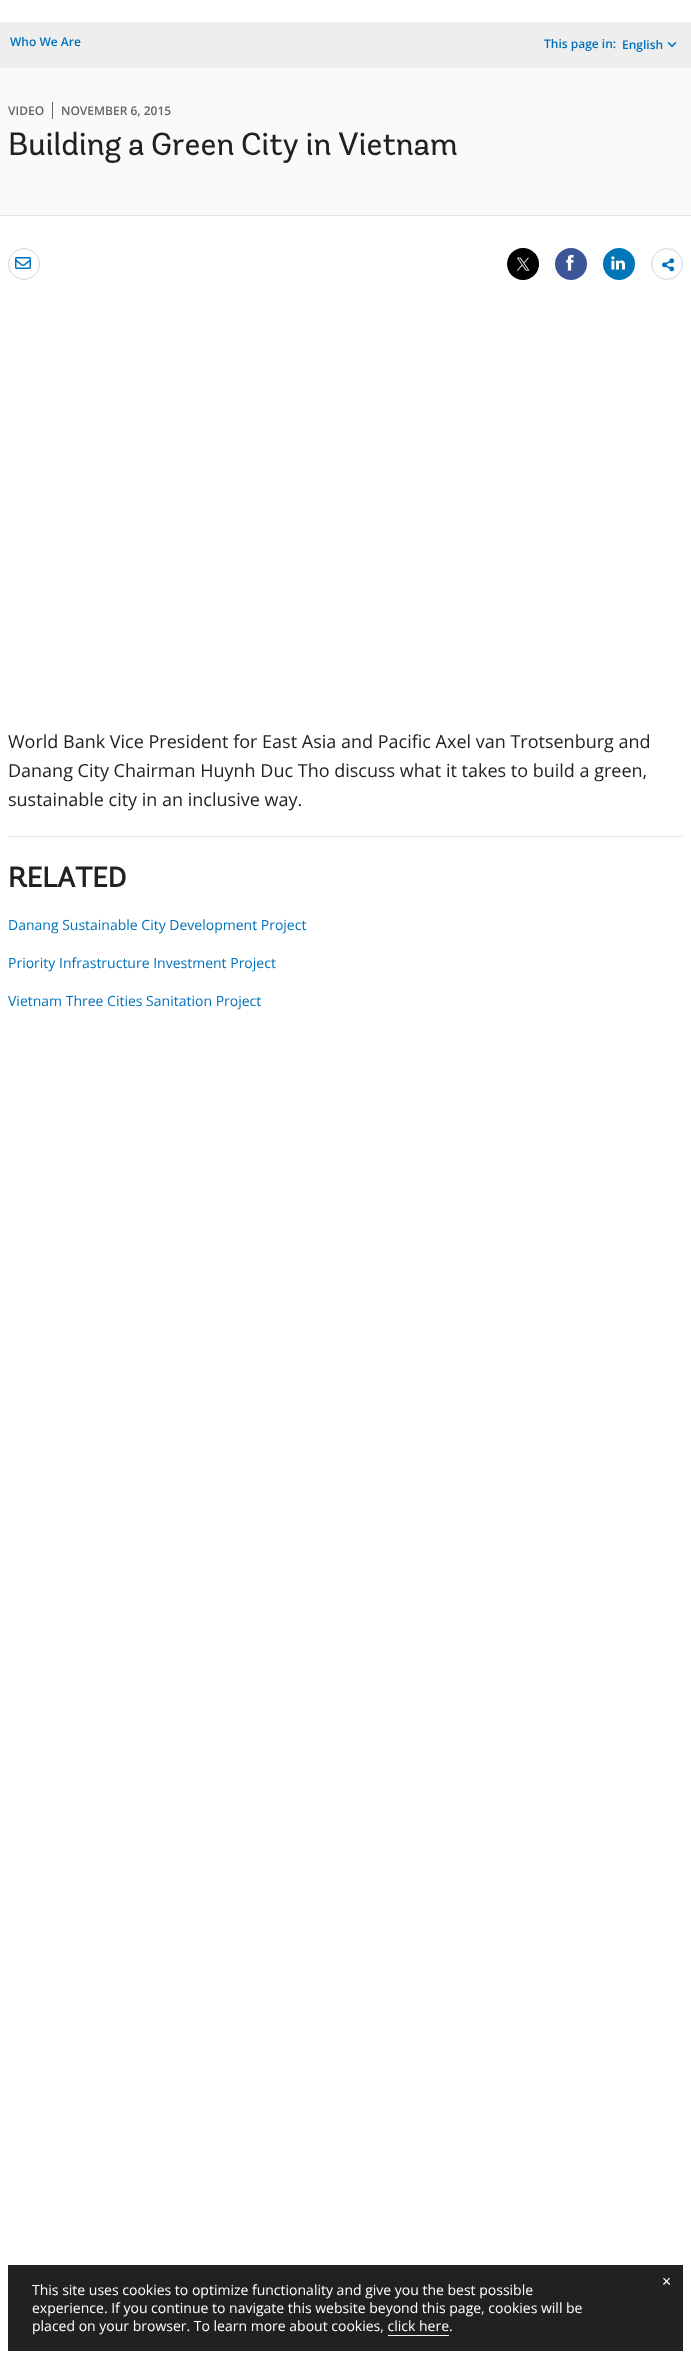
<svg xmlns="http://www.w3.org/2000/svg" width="691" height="2359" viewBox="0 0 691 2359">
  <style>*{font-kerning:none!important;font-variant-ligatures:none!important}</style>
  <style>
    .t1 { font: 600 12px Open Sans; fill: #0071bc; }
    .t2 { font: 600 12px Open Sans; fill: #646464; }
    .t3 { font: 32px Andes; fill: #212121; }
    .t4 { font: 18px Open Sans; fill: #212121; }
    .t5 { font: bold 28px Andes; fill: #212121; }
    .t6 { font: 14px Open Sans; fill: #0071bc; }
    .t7 { font: 16px Open Sans; fill: #fff; }
    .t8 { font: 14px Open Sans; fill: #fff; }
  </style>
  <rect width="100%" height="100%" fill="#fff"/>
  <rect x="0" y="22" width="691" height="46" fill="#eee"/>
  <text x="10" y="46" class="t1">Who We Are</text>
  <text x="544" y="48" class="t1">This page in:</text>
  <text x="622" y="49" class="t1">English</text>
  <image x="667" y="42" width="10" height="6" href="images/1.png"/>
  <rect x="0" y="68" width="691" height="147" fill="#fafafa"/>
  <rect x="0" y="215" width="691" height="1" fill="#e5e5e5"/>
  <text x="8" y="115" class="t2">VIDEO</text>
  <rect x="52" y="102" width="1" height="17" fill="#646464"/>
  <text x="61" y="115" class="t2">NOVEMBER 6, 2015</text>
  <text x="8" y="155" word-spacing="-0.75" class="t3">Building a Green City in Vietnam</text>
  <circle cx="24" cy="264" r="15.5" fill="none" stroke="#d6d6d6"/>
  <image x="15" y="257" width="16" height="12" href="images/2.png"/>
  <circle cx="523" cy="264" r="16" fill="#000"/>
  <circle cx="523" cy="264" r="15.5" fill="none" stroke="#00000029"/>
  <image x="516" y="257" width="14" height="14" href="images/3.png"/>
  <circle cx="571" cy="264" r="16" fill="#3c569a"/>
  <image x="566" y="254" width="8" height="17" href="images/4.png"/>
  <circle cx="619" cy="264" r="16" fill="#0075b7"/>
  <image x="611" y="256" width="14" height="14" href="images/5.png"/>
  <circle cx="667" cy="264" r="15.5" fill="none" stroke="#d6d6d6"/>
  <image x="662" y="258" width="13" height="14" href="images/6.png"/>
  <text x="8" y="748" class="t4">World Bank Vice President for East Asia and Pacific Axel van Trotsenburg and</text>
  <text x="8" y="777" class="t4">Danang City Chairman Huynh Duc Tho discuss what it takes to build a green,</text>
  <text x="8" y="806" class="t4">sustainable city in an inclusive way.</text>
  <rect x="8" y="836" width="675" height="1" fill="#e5e5e5"/>
  <text x="8" y="887" class="t5">RELATED</text>
  <text x="8" y="930" class="t6">Danang Sustainable City Development Project</text>
  <text x="8" y="968" class="t6">Priority Infrastructure Investment Project</text>
  <text x="8" y="1006" class="t6">Vietnam Three Cities Sanitation Project</text>
  <rect x="8" y="2265" width="675" height="86" fill="#212121"/>
  <text x="662" y="2287" class="t7">×</text>
  <text x="32" y="2295" class="t8">This site uses cookies to optimize functionality and give you the best possible</text>
  <text x="32" y="2313" class="t8">experience. If you continue to navigate this website beyond this page, cookies will be</text>
  <text x="32" y="2331" class="t8">placed on your browser. To learn more about cookies, click here.</text>
  <rect x="388" y="2335" width="61" height="1" fill="#fff"/>
</svg>
